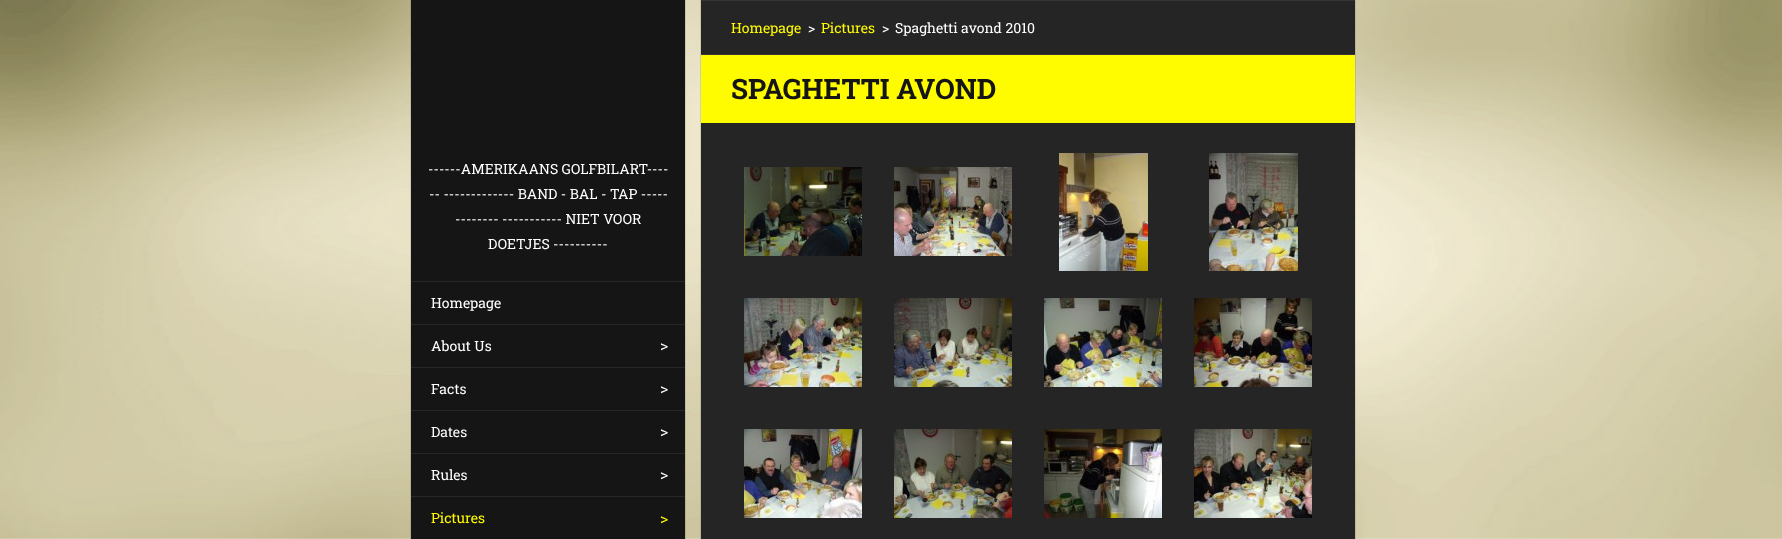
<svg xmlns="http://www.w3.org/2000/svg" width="1782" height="539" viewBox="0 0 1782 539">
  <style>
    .t1 { font: 14px Roboto Slab; fill: #fffc00; }
    .t2 { font: 14px Roboto Slab; fill: #fff; }
    .t3 { font: bold 28px Roboto Slab; fill: #151515; }
    .t4 { font: 16px Roboto Slab; fill: #fff; }
    .t5 { font: 16px Roboto Slab; fill: #fffc00; }
  </style>
  <rect width="100%" height="100%" fill="#fff"/>
  <image x="0" y="0" width="1782" height="539" href="images/1.png"/>
  <rect x="701" y="1" width="654" height="53" fill="#252525"/>
  <rect x="701" y="0" width="654" height="1" fill="#353535"/>
  <rect x="700.5" y="-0.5" width="655" height="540" fill="none" stroke="#0000001a"/>
  <text x="731" y="33" class="t1">Homepage</text>
  <text x="808" y="33" class="t2">&gt;</text>
  <text x="821" y="33" class="t1">Pictures</text>
  <text x="882" y="33" class="t2">&gt;</text>
  <text x="895" y="33" class="t2">Spaghetti avond 2010</text>
  <rect x="701" y="54" width="654" height="1" fill="#353535"/>
  <rect x="701" y="55" width="654" height="68" fill="#fffc00"/>
  <text x="731" y="99" class="t3">SPAGHETTI AVOND</text>
  <rect x="701" y="123" width="654" height="416" fill="#252525"/>
  <image x="744" y="167" width="118" height="89" href="images/2.png"/>
  <image x="894" y="167" width="118" height="89" href="images/3.png"/>
  <image x="1059" y="153" width="89" height="118" href="images/4.png"/>
  <image x="1209" y="153" width="89" height="118" href="images/5.png"/>
  <image x="744" y="298" width="118" height="89" href="images/6.png"/>
  <image x="894" y="298" width="118" height="89" href="images/7.png"/>
  <image x="1044" y="298" width="118" height="89" href="images/8.png"/>
  <image x="1194" y="298" width="118" height="89" href="images/9.png"/>
  <image x="744" y="429" width="118" height="89" href="images/10.png"/>
  <image x="894" y="429" width="118" height="89" href="images/11.png"/>
  <image x="1044" y="429" width="118" height="89" href="images/12.png"/>
  <image x="1194" y="429" width="118" height="89" href="images/13.png"/>
  <rect x="411" y="0" width="274" height="539" fill="#151515"/>
  <rect x="410.5" y="-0.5" width="275" height="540" fill="none" stroke="#0000001a"/>
  <text x="428" y="174" class="t2">------AMERIKAANS GOLFBILART----</text>
  <text x="429" y="199" class="t2">-- ------------- BAND - BAL - TAP -----</text>
  <text x="455" y="224" class="t2">-------- ----------- NIET VOOR</text>
  <text x="488" y="249" class="t2">DOETJES ----------</text>
  <rect x="411" y="281" width="274" height="1" fill="#272727"/>
  <text x="431" y="308" class="t2">Homepage</text>
  <rect x="411" y="324" width="274" height="1" fill="#272727"/>
  <text x="431" y="351" class="t2">About Us</text>
  <text x="660" y="351" class="t4">&gt;</text>
  <rect x="411" y="367" width="274" height="1" fill="#272727"/>
  <text x="431" y="394" class="t2">Facts</text>
  <text x="660" y="394" class="t4">&gt;</text>
  <rect x="411" y="410" width="274" height="1" fill="#272727"/>
  <text x="431" y="437" class="t2">Dates</text>
  <text x="660" y="437" class="t4">&gt;</text>
  <rect x="411" y="453" width="274" height="1" fill="#272727"/>
  <text x="431" y="480" class="t2">Rules</text>
  <text x="660" y="480" class="t4">&gt;</text>
  <rect x="411" y="496" width="274" height="1" fill="#272727"/>
  <text x="431" y="523" class="t1">Pictures</text>
  <text x="660" y="524" class="t5">&gt;</text>
</svg>
